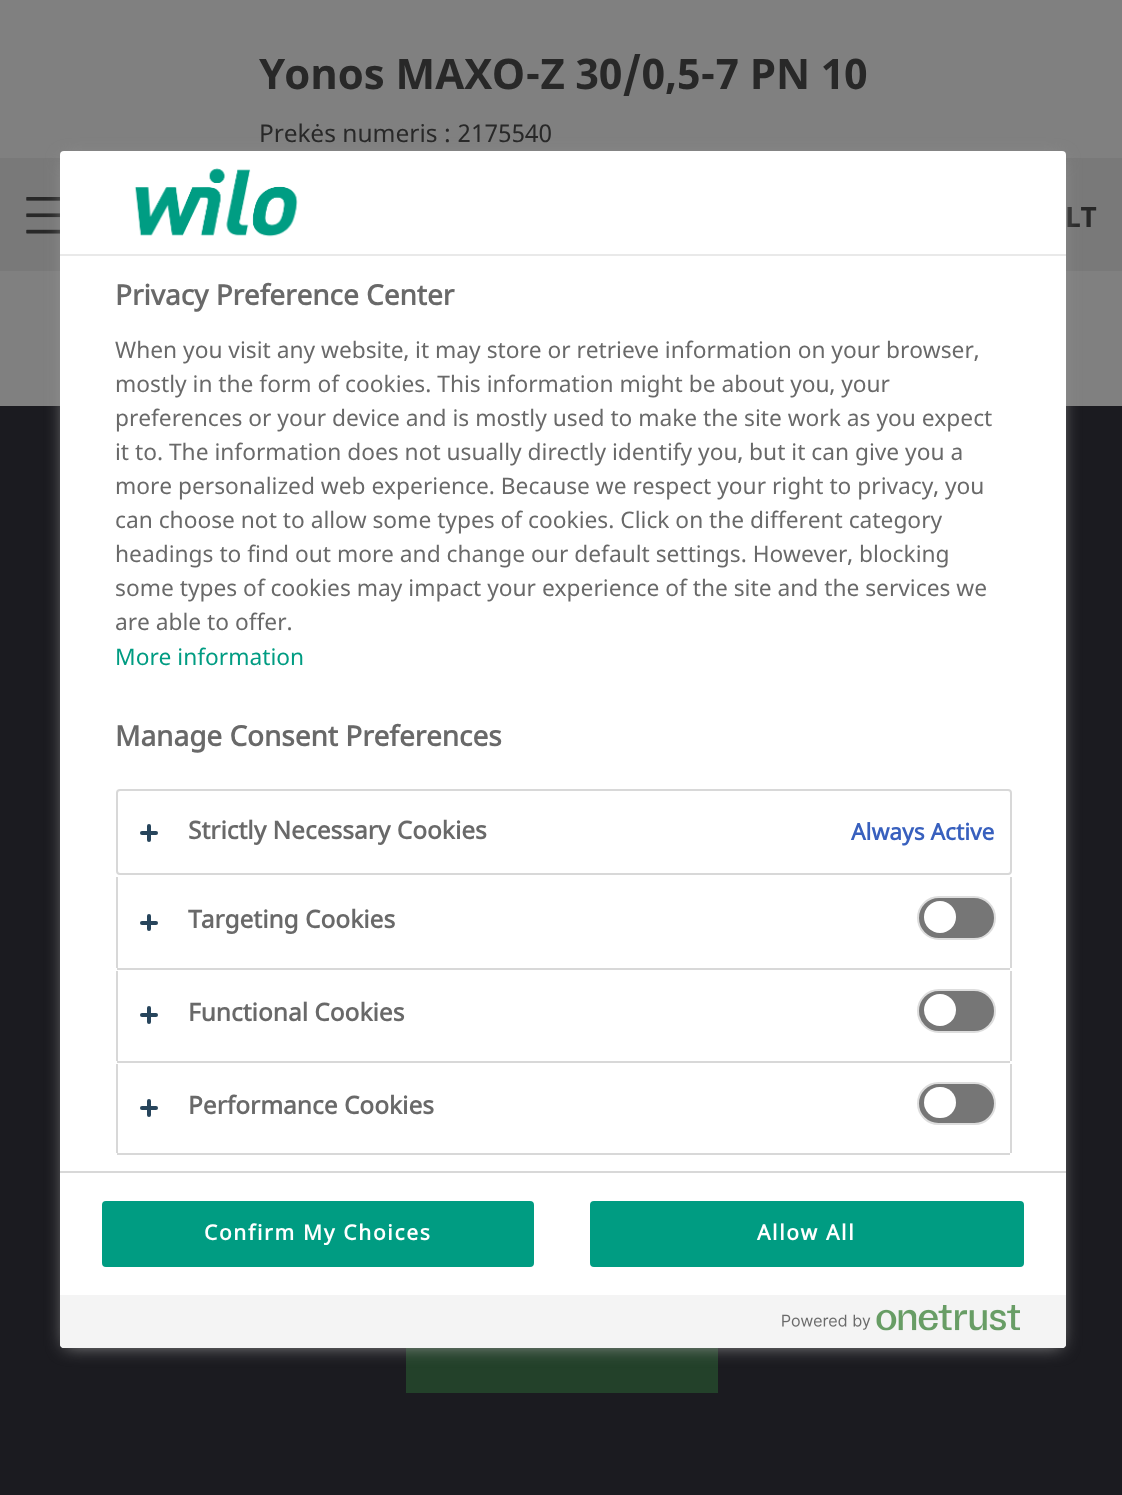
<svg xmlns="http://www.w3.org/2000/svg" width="1122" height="1495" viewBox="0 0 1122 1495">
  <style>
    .t1 { font: bold 42px Noto Sans; fill: #282828; }
    .t2 { font: 24.5px Noto Sans; fill: #282828; }
    .t3 { font: bold 28px Noto Sans; fill: #282828; }
    .t4 { font: bold 28px 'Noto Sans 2'; fill: #696969; }
    .t5 { font: 22.75px Noto Sans; fill: #696969; }
    .t6 { font: 22.75px Noto Sans; fill: #009c82; }
    .t7 { font: bold 24.5px 'Noto Sans 2'; fill: #696969; }
    .t8 { font: bold 22.75px 'Noto Sans 2'; fill: #3860be; }
    .t9 { font: bold 21px 'Noto Sans 2'; letter-spacing: 1.7px; fill: #fff; }
  </style>
  <rect width="100%" height="100%" fill="#808080"/>
  <text x="259" y="89" class="t1">Yonos MAXO-Z 30/0,5-7 PN 10</text>
  <text x="259" y="142" class="t2">Prekės numeris : 2175540</text>
  <rect x="0" y="158" width="1122" height="113" fill="#797979"/>
  <image x="26" y="197" width="34" height="37" href="images/1.png"/>
  <text x="1065" y="227" class="t3">LT</text>
  <rect x="0" y="406" width="1122" height="1089" fill="#1b1b20"/>
  <rect x="406" y="1348" width="312" height="45" fill="#23412a"/>
  <rect x="65" y="159" width="996" height="1187" fill="#999" filter="blur(9px)"/>
  <rect x="60" y="151" width="1006" height="1197" rx="4" fill="#fff"/>
  <rect x="60" y="254" width="1006" height="2" fill="#e9e9e9"/>
  <image x="134" y="168" width="164" height="69" href="images/2.png"/>
  <text x="115" y="305" class="t4">Privacy Preference Center</text>
  <text x="115" y="358" class="t5">When you visit any website, it may store or retrieve information on your browser,</text>
  <text x="115" y="392" class="t5">mostly in the form of cookies. This information might be about you, your</text>
  <text x="115" y="426" class="t5">preferences or your device and is mostly used to make the site work as you expect</text>
  <text x="115" y="460" class="t5">it to. The information does not usually directly identify you, but it can give you a</text>
  <text x="115" y="494" class="t5">more personalized web experience. Because we respect your right to privacy, you</text>
  <text x="115" y="528" class="t5">can choose not to allow some types of cookies. Click on the different category</text>
  <text x="115" y="562" class="t5">headings to find out more and change our default settings. However, blocking</text>
  <text x="115" y="596" class="t5">some types of cookies may impact your experience of the site and the services we</text>
  <text x="115" y="630" class="t5">are able to offer.</text>
  <text x="115" y="665" class="t6">More information</text>
  <text x="115" y="746" class="t4">Manage Consent Preferences</text>
  <rect x="117" y="790" width="894" height="84" rx="3" fill="none" stroke="#d8d8d8" stroke-width="2"/>
  <rect x="147" y="824" width="4" height="18" rx="2" fill="#27455c"/>
  <rect x="140" y="831" width="18" height="4" rx="2" fill="#27455c"/>
  <text x="188" y="839" class="t7">Strictly Necessary Cookies</text>
  <text x="851" y="840" class="t8">Always Active</text>
  <rect x="1010" y="877" width="2" height="91" fill="#d8d8d8"/>
  <rect x="117" y="968" width="893" height="2" fill="#d8d8d8"/>
  <rect x="116" y="877" width="2" height="91" fill="#d8d8d8"/>
  <rect x="147" y="914" width="4" height="17" rx="2" fill="#27455c"/>
  <rect x="140" y="921" width="18" height="4" rx="2" fill="#27455c"/>
  <text x="188" y="928" class="t7">Targeting Cookies</text>
  <rect x="918" y="897" width="77" height="42" rx="21" fill="#767676" stroke="#ddd" stroke-width="2"/>
  <circle cx="940" cy="917" r="16" fill="#fff"/>
  <rect x="1010" y="971" width="2" height="90" fill="#d8d8d8"/>
  <rect x="117" y="1061" width="893" height="2" fill="#d8d8d8"/>
  <rect x="116" y="971" width="2" height="90" fill="#d8d8d8"/>
  <rect x="147" y="1006" width="4" height="18" rx="2" fill="#27455c"/>
  <rect x="140" y="1013" width="18" height="4" rx="2" fill="#27455c"/>
  <text x="188" y="1021" class="t7">Functional Cookies</text>
  <rect x="918" y="990" width="77" height="42" rx="21" fill="#767676" stroke="#ddd" stroke-width="2"/>
  <circle cx="940" cy="1010" r="16" fill="#fff"/>
  <rect x="1010" y="1064" width="2" height="89" fill="#d8d8d8"/>
  <rect x="117" y="1153" width="893" height="2" fill="#d8d8d8"/>
  <rect x="116" y="1064" width="2" height="89" fill="#d8d8d8"/>
  <rect x="147" y="1099" width="4" height="18" rx="2" fill="#27455c"/>
  <rect x="140" y="1106" width="18" height="4" rx="2" fill="#27455c"/>
  <text x="188" y="1114" class="t7">Performance Cookies</text>
  <rect x="918" y="1083" width="77" height="41" rx="20.5" fill="#767676" stroke="#ddd" stroke-width="2"/>
  <rect x="924" y="1087" width="32" height="31" rx="15.5" fill="#fff"/>
  <rect x="60" y="1171" width="1006" height="2" fill="#d8d8d8"/>
  <rect x="103" y="1202" width="430" height="64" rx="3" fill="#009c82" stroke="#009c82" stroke-width="2"/>
  <text x="204" y="1240" class="t9">Confirm My Choices</text>
  <rect x="591" y="1202" width="432" height="64" rx="3" fill="#009c82" stroke="#009c82" stroke-width="2"/>
  <text x="757" y="1240" class="t9">Allow All</text>
  <path d="M60 1295H1066V1344C1066 1346 1064 1348 1062 1348H64C62 1348 60 1346 60 1344Z" fill="#f4f4f4"/>
  <image x="782" y="1305" width="238" height="26" href="images/3.png"/>
</svg>
